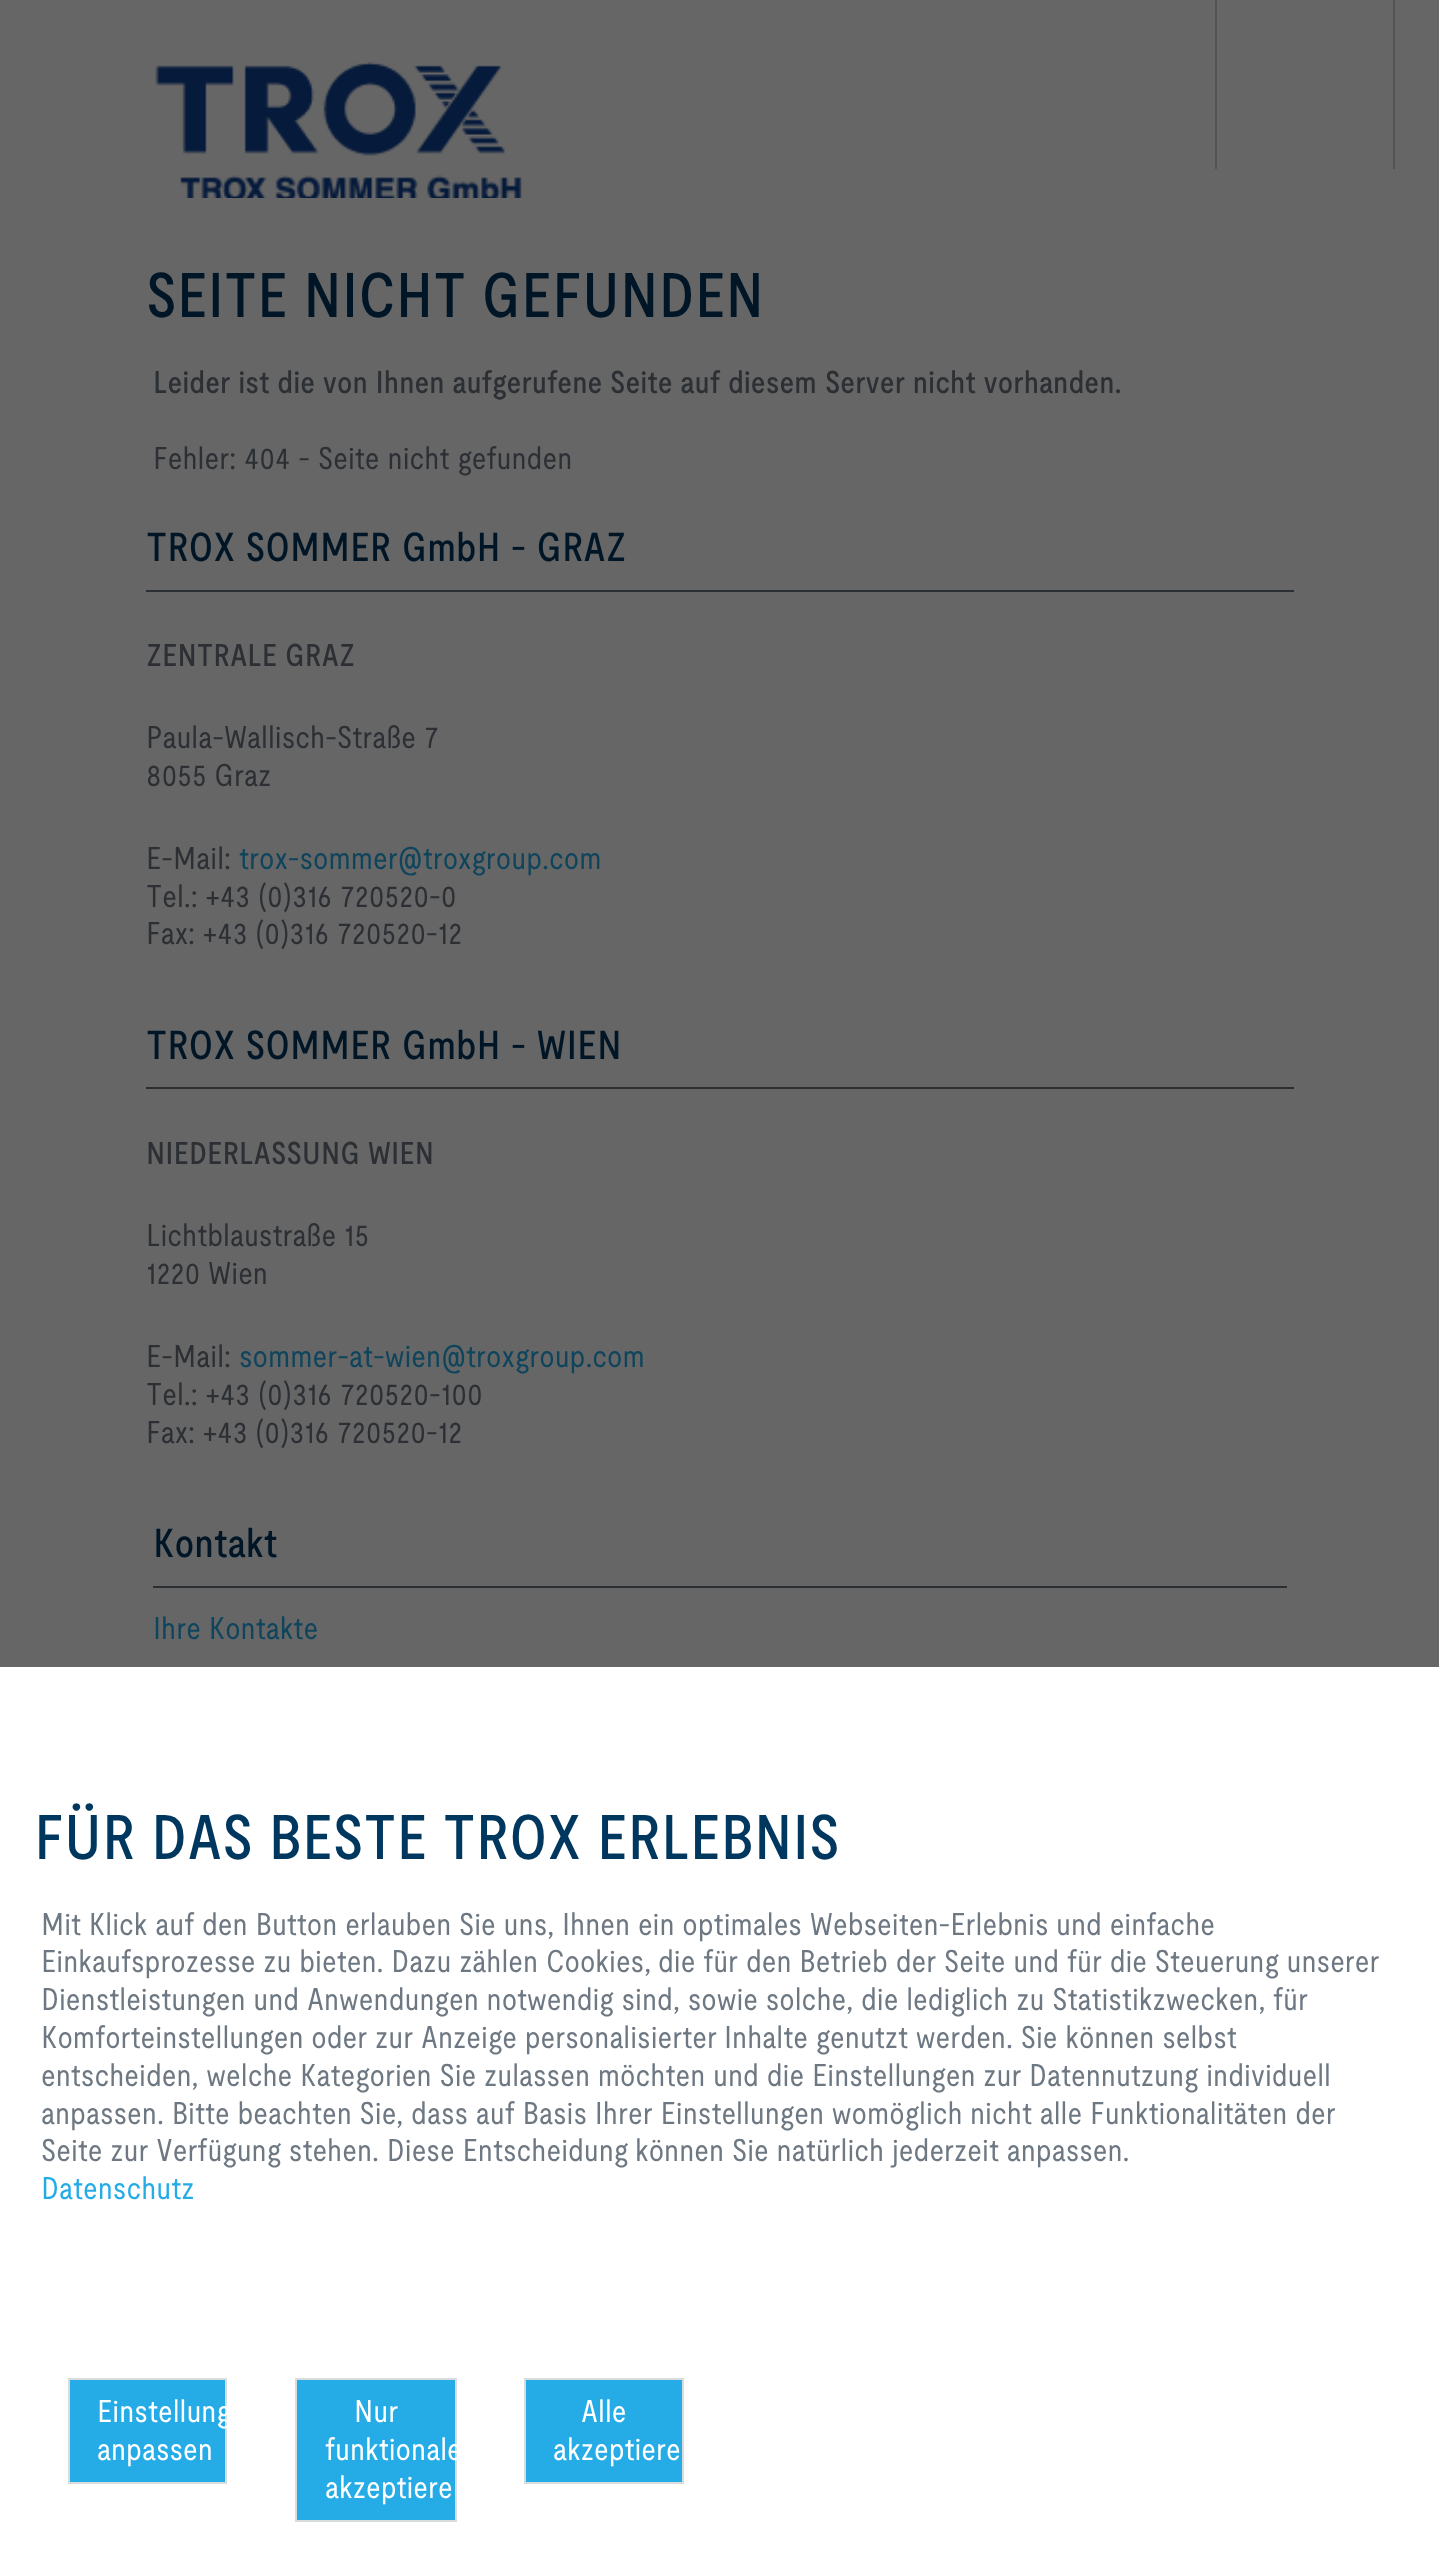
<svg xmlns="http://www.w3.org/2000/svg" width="1439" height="2566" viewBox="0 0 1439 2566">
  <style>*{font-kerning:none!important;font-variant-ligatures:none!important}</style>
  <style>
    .t1 { font: 500 63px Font; fill: #001626; }
    .t2 { font: 500 31.5px Font; fill: #2c3034; }
    .t3 { font: 31.5px Font; fill: #2c3034; }
    .t4 { font: 500 40.5px Font; fill: #001626; }
    .t5 { font: 31.5px Font; fill: #0f455c; }
    .t6 { font: 500 63px Font; fill: #00375f; }
    .t7 { font: 31.5px Font; fill: #6e7883; }
    .t8 { font: 31.5px Font; fill: #25ace7; }
    .t9 { font: 31.5px Font; fill: #fff; }
  </style>
  <rect width="100%" height="100%" fill="#666"/>
  <image x="155" y="61" width="367" height="137" href="images/1.png"/>
  <rect x="1393" y="0" width="2" height="169" fill="#525355"/>
  <rect x="1215" y="0" width="2" height="169" fill="#525355"/>
  <text x="146" y="317" class="t1">SEITE NICHT GEFUNDEN</text>
  <text x="153" y="393" class="t2">Leider ist die von Ihnen aufgerufene Seite auf diesem</text>
  <text x="825" y="393" class="t2">Server nicht vorhanden.</text>
  <text x="153" y="469" word-spacing="0.25" class="t3">Fehler: 404 - Seite nicht gefunden</text>
  <rect x="146" y="590" width="1148" height="2" fill="#2c3034"/>
  <text x="146" y="561" word-spacing="0.5" class="t4">TROX SOMMER GmbH - GRAZ</text>
  <text x="146" y="666" class="t2">ZENTRALE GRAZ</text>
  <text x="146" y="748" class="t3">Paula-Wallisch-Straße</text>
  <text x="424" y="748" class="t3">7</text>
  <text x="146" y="786" class="t3">8055 Graz</text>
  <text x="146" y="869" class="t3">E-Mail:</text>
  <text x="239" y="869" class="t5">trox-sommer@troxgroup.com</text>
  <text x="146" y="907" class="t3">Tel.: +43 (0)316</text>
  <text x="340" y="907" class="t3">720520-0</text>
  <text x="146" y="944" class="t3">Fax: +43 (0)316</text>
  <text x="337" y="944" class="t3">720520-12</text>
  <rect x="146" y="1087" width="1148" height="2" fill="#2c3034"/>
  <text x="146" y="1059" word-spacing="0.5" class="t4">TROX SOMMER GmbH - WIEN</text>
  <text x="146" y="1164" class="t2">NIEDERLASSUNG WIEN</text>
  <text x="146" y="1246" class="t3">Lichtblaustraße 15</text>
  <text x="146" y="1284" class="t3">1220 Wien</text>
  <text x="146" y="1367" class="t3">E-Mail:</text>
  <text x="239" y="1367" class="t5">sommer-at-wien@troxgroup.com</text>
  <text x="146" y="1405" class="t3">Tel.: +43 (0)316</text>
  <text x="340" y="1405" class="t3">720520-100</text>
  <text x="146" y="1443" class="t3">Fax: +43 (0)316</text>
  <text x="337" y="1443" class="t3">720520-12</text>
  <rect x="153" y="1586" width="1134" height="2" fill="#2c3034"/>
  <text x="153" y="1557" class="t4">Kontakt</text>
  <text x="153" y="1639" class="t5">Ihre Kontakte</text>
  <rect x="0" y="1667" width="1439" height="899" fill="#fff"/>
  <text x="34" y="1859" class="t6">FÜR DAS BESTE TROX ERLEBNIS</text>
  <text x="41" y="1935" class="t7">Mit Klick auf den Button erlauben Sie uns, Ihnen ein optimales Webseiten-Erlebnis</text>
  <text x="1056" y="1935" class="t7">und einfache</text>
  <text x="41" y="1972" class="t7">Einkaufsprozesse zu bieten. Dazu zählen Cookies,</text>
  <text x="658" y="1972" class="t7">die für den Betrieb der Seite und für die Steuerung unserer</text>
  <text x="41" y="2010" class="t7">Dienstleistungen und Anwendungen notwendig sind, sowie solche, die lediglich zu Statistikzwecken,</text>
  <text x="1273" y="2010" class="t7">für</text>
  <text x="41" y="2048" class="t7">Komforteinstellungen oder zur Anzeige personalisierter</text>
  <text x="724" y="2048" class="t7">Inhalte genutzt werden. Sie können selbst</text>
  <text x="41" y="2086" class="t7">entscheiden, welche Kategorien Sie zulassen möchten und die Einstellungen zur</text>
  <text x="1029" y="2086" class="t7">Datennutzung individuell</text>
  <text x="41" y="2124" class="t7">anpassen. Bitte beachten Sie, dass auf Basis Ihrer Einstellungen womöglich</text>
  <text x="970" y="2124" class="t7">nicht alle Funktionalitäten der</text>
  <text x="41" y="2161" class="t7">Seite zur Verfügung stehen. Diese Entscheidung</text>
  <text x="635" y="2161" class="t7">können Sie natürlich jederzeit anpassen.</text>
  <text x="41" y="2199" class="t8">Datenschutz</text>
  <rect x="69" y="2379" width="157" height="104" fill="#25ace7" stroke="#d9dcdd" stroke-width="2"/>
  <text x="97" y="2422" class="t9">Einstellung</text>
  <text x="97" y="2460" class="t9">anpassen</text>
  <rect x="296" y="2379" width="160" height="142" fill="#25ace7" stroke="#d9dcdd" stroke-width="2"/>
  <text x="354" y="2422" class="t9">Nur</text>
  <text x="325" y="2460" class="t9">funktionale</text>
  <text x="325" y="2498" class="t9">akzeptiere</text>
  <rect x="525" y="2379" width="158" height="104" fill="#25ace7" stroke="#d9dcdd" stroke-width="2"/>
  <text x="581" y="2422" class="t9">Alle</text>
  <text x="553" y="2460" class="t9">akzeptiere</text>
</svg>
